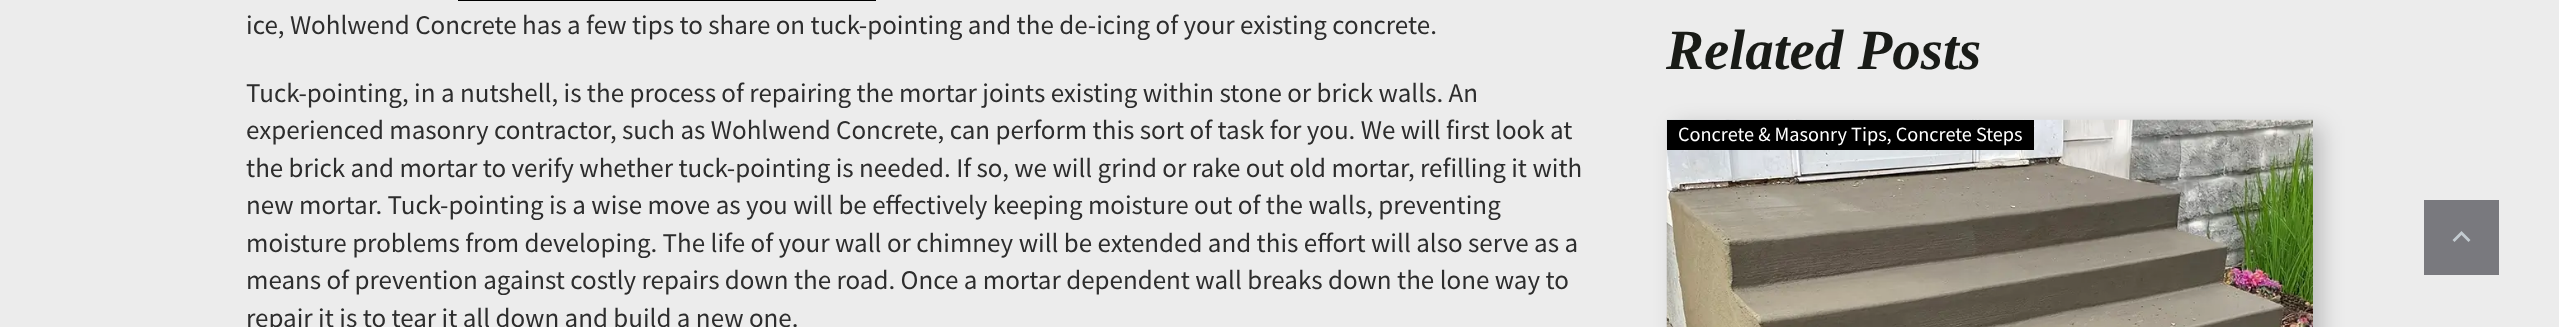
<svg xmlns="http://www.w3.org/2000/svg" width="2559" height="327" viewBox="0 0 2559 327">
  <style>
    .t1 { font: 27px Source Sans Pro; fill: #2d2d2d; }
    .t2 { font: italic bold 57px Liberation Serif; fill: #191b17; }
    .t3 { font: 20.25px Source Sans Pro; fill: #fff; }
  </style>
  <rect width="100%" height="100%" fill="#ececec"/>
  <rect x="458" y="0" width="418" height="1" fill="#000"/>
  <text x="246" y="34" class="t1">ice, Wohlwend Concrete has a few tips to share on tuck-pointing and the de-icing of your existing concrete.</text>
  <text x="246" y="102" class="t1">Tuck-pointing, in a nutshell, is the process of repairing the mortar joints existing within stone or brick walls. An</text>
  <text x="246" y="139" class="t1">experienced masonry contractor, such as Wohlwend Concrete, can perform this sort of task for you. We will first look at</text>
  <text x="246" y="177" class="t1">the brick and mortar to verify whether tuck-pointing is needed. If so, we will grind or rake out old mortar, refilling it with</text>
  <text x="246" y="214" class="t1">new mortar. Tuck-pointing is a wise move as you will be effectively keeping moisture out of the walls, preventing</text>
  <text x="246" y="252" class="t1">moisture problems from developing. The life of your wall or chimney will be extended and this effort will also serve as a</text>
  <text x="246" y="289" class="t1">means of prevention against costly repairs down the road. Once a mortar dependent wall breaks down the lone way to</text>
  <text x="246" y="327" class="t1">repair it is to tear it all down and build a new one.</text>
  <text x="1666" y="69" class="t2">Related Posts</text>
  <rect x="1676" y="126" width="646" height="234" fill="#00000033" filter="blur(11px)"/>
  <image x="1666" y="119" width="647" height="208" href="images/1.png"/>
  <rect x="1667" y="120" width="367" height="30" fill="#000"/>
  <text x="1678" y="141" class="t3">Concrete &amp; Masonry Tips, Concrete Steps</text>
  <rect x="2424" y="200" width="75" height="75" fill="#79797e"/>
  <path d="M2454.5 242L2461.5 235L2468.5 242L2470.5 240L2461.5 231L2452.5 240Z" fill="#c3cbd1"/>
</svg>
